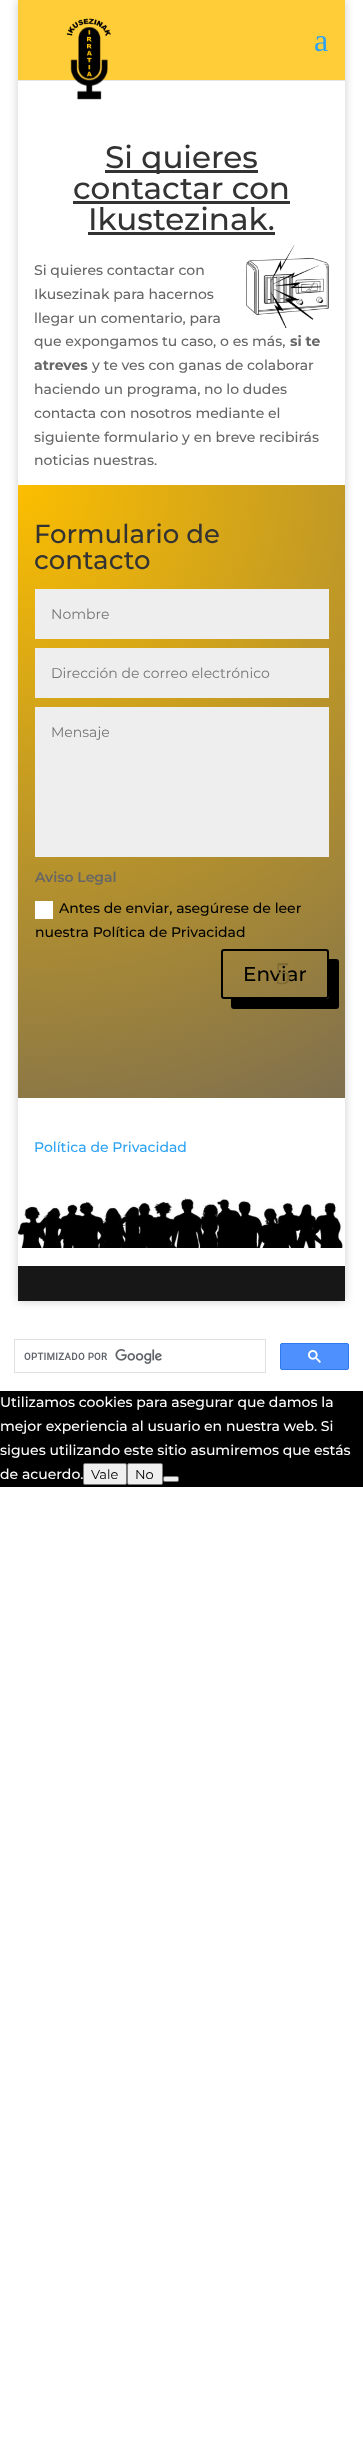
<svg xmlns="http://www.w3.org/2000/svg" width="363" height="2456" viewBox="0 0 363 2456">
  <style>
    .t1 { font: 32px Liberation Serif; fill: #2ea3f2; }
    .t2 { font: 500 31px Montserrat; fill: #333; }
    .t3 { font: 500 14px Montserrat; fill: #666; }
    .t4 { font: bold 14px Montserrat; fill: #666; }
    .t5 { font: 500 26px Montserrat; fill: #333; }
    .t6 { font: 14px Montserrat; fill: #757575; }
    .t7 { font: 600 14px Montserrat; fill: #666; }
    .t8 { font: 500 14px Montserrat; fill: #000; }
    .t9 { font: 500 20px Montserrat; fill: #000; }
    .t10 { font: 32px Liberation Serif; fill: #806b35; }
    .t11 { font: 500 14px Montserrat; fill: #2ea3f2; }
    .t12 { font: 500 14px Montserrat; fill: #fff; }
    .t13 { font: 13px Montserrat; fill: #000; }
  </style>
  <defs>
    <clipPath id="clip1"><path d="M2 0H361V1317H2ZM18 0H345V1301H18Z" clip-rule="evenodd"/></clipPath>
    <radialGradient id="g1" gradientUnits="userSpaceOnUse" cx="18" cy="485" r="695"><stop offset="0" stop-color="#fcbe00"/><stop offset="1" stop-color="#7e6f4f"/></radialGradient>
  </defs>
  <rect width="100%" height="100%" fill="#fff"/>
  <g clip-path="url(#clip1)">
    <rect x="18" y="0" width="327" height="1301" fill="#00000033" filter="blur(5px)"/>
  </g>
  <rect x="18" y="80" width="327" height="1" fill="#e6e6e6"/>
  <rect x="18" y="0" width="327" height="80" fill="#ffcd38"/>
  <image x="66" y="18" width="45" height="82" href="images/1.png"/>
  <text x="314" y="51" class="t1">a</text>
  <rect x="105" y="170" width="153" height="3" fill="#333"/>
  <text x="105" y="168" class="t2">Si quieres</text>
  <text x="73" y="199" class="t2">contactar con</text>
  <rect x="73" y="201" width="217" height="3" fill="#333"/>
  <text x="88" y="230" class="t2">Ikustezinak.</text>
  <rect x="88" y="232" width="187" height="3" fill="#333"/>
  <image x="246" y="245" width="83" height="83" href="images/2.png"/>
  <text x="34" y="275" class="t3">Si quieres contactar con</text>
  <text x="34" y="299" class="t3">Ikusezinak para hacernos</text>
  <text x="34" y="323" class="t3">llegar un comentario, para</text>
  <text x="34" y="346" class="t3">que expongamos tu caso, o es más,</text>
  <text x="290" y="346" class="t4">si te</text>
  <text x="34" y="370" class="t4">atreves</text>
  <text x="92" y="370" class="t3">y te ves con ganas de colaborar</text>
  <text x="34" y="394" class="t3">haciendo un programa, no lo dudes</text>
  <text x="34" y="418" class="t3">contacta con nosotros mediante el</text>
  <text x="34" y="442" class="t3">siguiente formulario y en breve recibirás</text>
  <text x="34" y="465" class="t3">noticias nuestras.</text>
  <rect x="18" y="485" width="327" height="613" fill="url(#g1)"/>
  <text x="34" y="543" class="t5">Formulario de</text>
  <text x="34" y="569" class="t5">contacto</text>
  <rect x="35" y="589" width="294" height="50" fill="#eee"/>
  <text x="51" y="619" class="t6">Nombre</text>
  <rect x="35" y="648" width="294" height="50" fill="#eee"/>
  <text x="51" y="678" class="t6">Dirección de correo electrónico</text>
  <rect x="35" y="707" width="294" height="150" fill="#eee"/>
  <text x="51" y="737" class="t6">Mensaje</text>
  <text x="35" y="882" class="t7">Aviso Legal</text>
  <rect x="35" y="901" width="18" height="18" fill="#fff"/>
  <text x="59" y="913" class="t8">Antes de enviar, asegúrese de leer</text>
  <text x="35" y="937" class="t8">nuestra Política de Privacidad</text>
  <path d="M231 999V1006C231 1008 232 1009 234 1009H336C338 1009 339 1008 339 1006V962C339 960 338 959 336 959H329V996C329 998 328 999 326 999Z" fill="#000"/>
  <rect x="222" y="950" width="106" height="48" rx="2" fill="none" stroke="#000" stroke-width="2"/>
  <text x="243" y="981" class="t9">Enviar</text>
  <text x="275" y="984" class="t10">5</text>
  <text x="34" y="1152" class="t11">Política de Privacidad</text>
  <image x="18" y="1198" width="325" height="50" href="images/3.png"/>
  <rect x="18" y="1266" width="327" height="35" fill="#171717"/>
  <rect x="14.5" y="1339.5" width="251" height="33" fill="none" stroke="#dfe1e5"/>
  <image x="24" y="1349" width="138" height="15" href="images/4.png"/>
  <rect x="280.5" y="1343.5" width="68" height="26" rx="1.5" fill="#4d90fe" stroke="#3079ed"/>
  <image x="308" y="1350" width="13" height="13" href="images/5.png"/>
  <rect x="0" y="1391" width="363" height="96" fill="#000"/>
  <text x="0" y="1407" class="t12">Utilizamos cookies para asegurar que damos la</text>
  <text x="0" y="1431" class="t12">mejor experiencia al usuario en nuestra web. Si</text>
  <text x="0" y="1455" class="t12">sigues utilizando este sitio asumiremos que estás</text>
  <text x="0" y="1479" class="t12">de acuerdo.</text>
  <rect x="83.5" y="1463.5" width="43" height="21" rx="1.5" fill="#efefef" stroke="#767676"/>
  <text x="91" y="1479" class="t13">Vale</text>
  <rect x="127.5" y="1463.5" width="35" height="21" rx="1.5" fill="#efefef" stroke="#767676"/>
  <text x="135" y="1479" class="t13">No</text>
  <rect x="163.5" y="1476.5" width="15" height="5" rx="1.5" fill="#efefef" stroke="#767676"/>
</svg>
